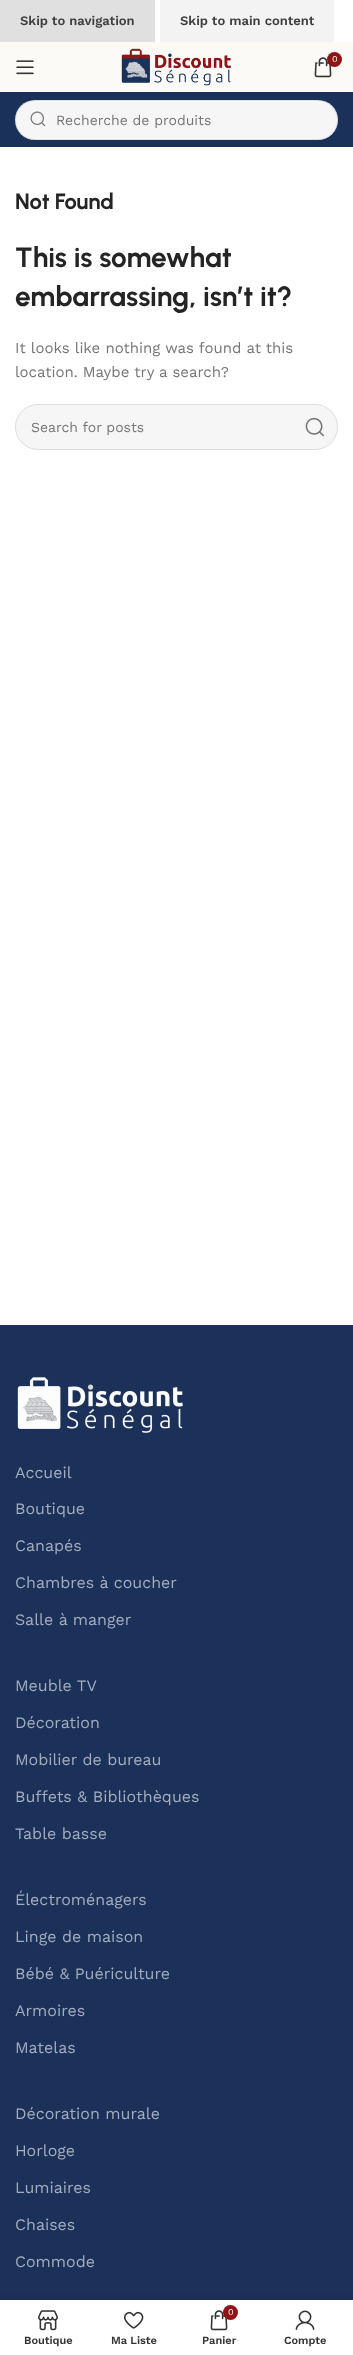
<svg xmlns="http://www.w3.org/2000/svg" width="353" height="2355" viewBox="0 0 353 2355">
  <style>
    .t1 { font: 600 13px Work Sans; fill: #3e3e3e; }
    .t2 { font: 9px Work Sans; fill: #fff; }
    .t3 { font: 14px Work Sans; fill: #767676; }
    .t4 { font: bold 22px Urbanist; fill: #242424; }
    .t5 { font: bold 28px Urbanist; fill: #242424; }
    .t6 { font: 15px Work Sans; fill: #767676; }
    .t7 { font: 16px Work Sans; fill: #a4adbd; }
    .t8 { font: 600 11px Work Sans; fill: #333; }
  </style>
  <rect width="100%" height="100%" fill="#fff"/>
  <rect x="0" y="0" width="155" height="42" fill="#e0e0e0"/>
  <text x="20" y="25" class="t1">Skip to navigation</text>
  <rect x="160" y="0" width="174" height="42" fill="#f3f3f3"/>
  <text x="180" y="25" class="t1">Skip to main content</text>
  <rect x="0" y="42" width="353" height="50" fill="#fbfaf7"/>
  <image x="16" y="60" width="18" height="15" href="images/1.png"/>
  <image x="121" y="48" width="110" height="38" href="images/2.png"/>
  <image x="314" y="57" width="18" height="21" href="images/3.png"/>
  <circle cx="334.5" cy="59.5" r="7.5" fill="#8e1417"/>
  <text x="332" y="62" class="t2">0</text>
  <rect x="0" y="92" width="353" height="55" fill="#1a3259"/>
  <rect x="15" y="100" width="323" height="40" rx="20" fill="#f6f6f6"/>
  <rect x="15.5" y="100.5" width="322" height="39" rx="19.5" fill="none" stroke="#0000001a"/>
  <image x="30" y="111" width="16" height="16" href="images/4.png"/>
  <path d="M32 126C28.5 122.5 28.5 116.5 32 113" fill="none" stroke="#f6f6f6"/>
  <text x="56" y="125" class="t3">Recherche de produits</text>
  <text x="15" y="209" class="t4">Not Found</text>
  <text x="15" y="267" class="t5">This is somewhat</text>
  <text x="15" y="306" class="t5">embarrassing, isn’t it?</text>
  <text x="15" y="353" class="t6">It looks like nothing was found at this</text>
  <text x="15" y="377" class="t6">location. Maybe try a search?</text>
  <rect x="15" y="404" width="323" height="46" rx="23" fill="#f6f6f6"/>
  <rect x="15.5" y="404.5" width="322" height="45" rx="22.5" fill="none" stroke="#0000001a"/>
  <text x="31" y="432" class="t3">Search for posts</text>
  <image x="305" y="417" width="19" height="20" href="images/5.png"/>
  <rect x="0" y="1325" width="353" height="975" fill="#1b3159"/>
  <image x="17" y="1377" width="166" height="56" href="images/6.png"/>
  <text x="15" y="1478" class="t7">Accueil</text>
  <text x="15" y="1514" class="t7">Boutique</text>
  <text x="15" y="1551" class="t7">Canapés</text>
  <text x="15" y="1588" class="t7">Chambres à coucher</text>
  <text x="15" y="1625" class="t7">Salle à manger</text>
  <text x="15" y="1691" class="t7">Meuble TV</text>
  <text x="15" y="1728" class="t7">Décoration</text>
  <text x="15" y="1765" class="t7">Mobilier de bureau</text>
  <text x="15" y="1802" class="t7">Buffets &amp; Bibliothèques</text>
  <text x="15" y="1839" class="t7">Table basse</text>
  <text x="15" y="1905" class="t7">Électroménagers</text>
  <text x="15" y="1942" class="t7">Linge de maison</text>
  <text x="15" y="1979" class="t7">Bébé &amp; Puériculture</text>
  <text x="15" y="2016" class="t7">Armoires</text>
  <text x="15" y="2053" class="t7">Matelas</text>
  <text x="15" y="2119" class="t7">Décoration murale</text>
  <text x="15" y="2156" class="t7">Horloge</text>
  <text x="15" y="2193" class="t7">Lumiaires</text>
  <text x="15" y="2230" class="t7">Chaises</text>
  <text x="15" y="2267" class="t7">Commode</text>
  <rect x="0" y="2300" width="353" height="55" fill="#0000001f" filter="blur(4.5px)"/>
  <rect x="0" y="2300" width="353" height="55" fill="#fff"/>
  <image x="38" y="2310" width="20" height="21" href="images/7.png"/>
  <text x="24" y="2344" class="t8">Boutique</text>
  <image x="124" y="2311" width="20" height="18" href="images/8.png"/>
  <text x="111" y="2344" class="t8">Ma Liste</text>
  <image x="210" y="2310" width="18" height="21" href="images/9.png"/>
  <circle cx="230.5" cy="2312.5" r="7.5" fill="#8e1417"/>
  <text x="228" y="2315" class="t2">0</text>
  <text x="202" y="2344" class="t8">Panier</text>
  <image x="295" y="2310" width="20" height="20" href="images/10.png"/>
  <text x="284" y="2344" class="t8">Compte</text>
</svg>
